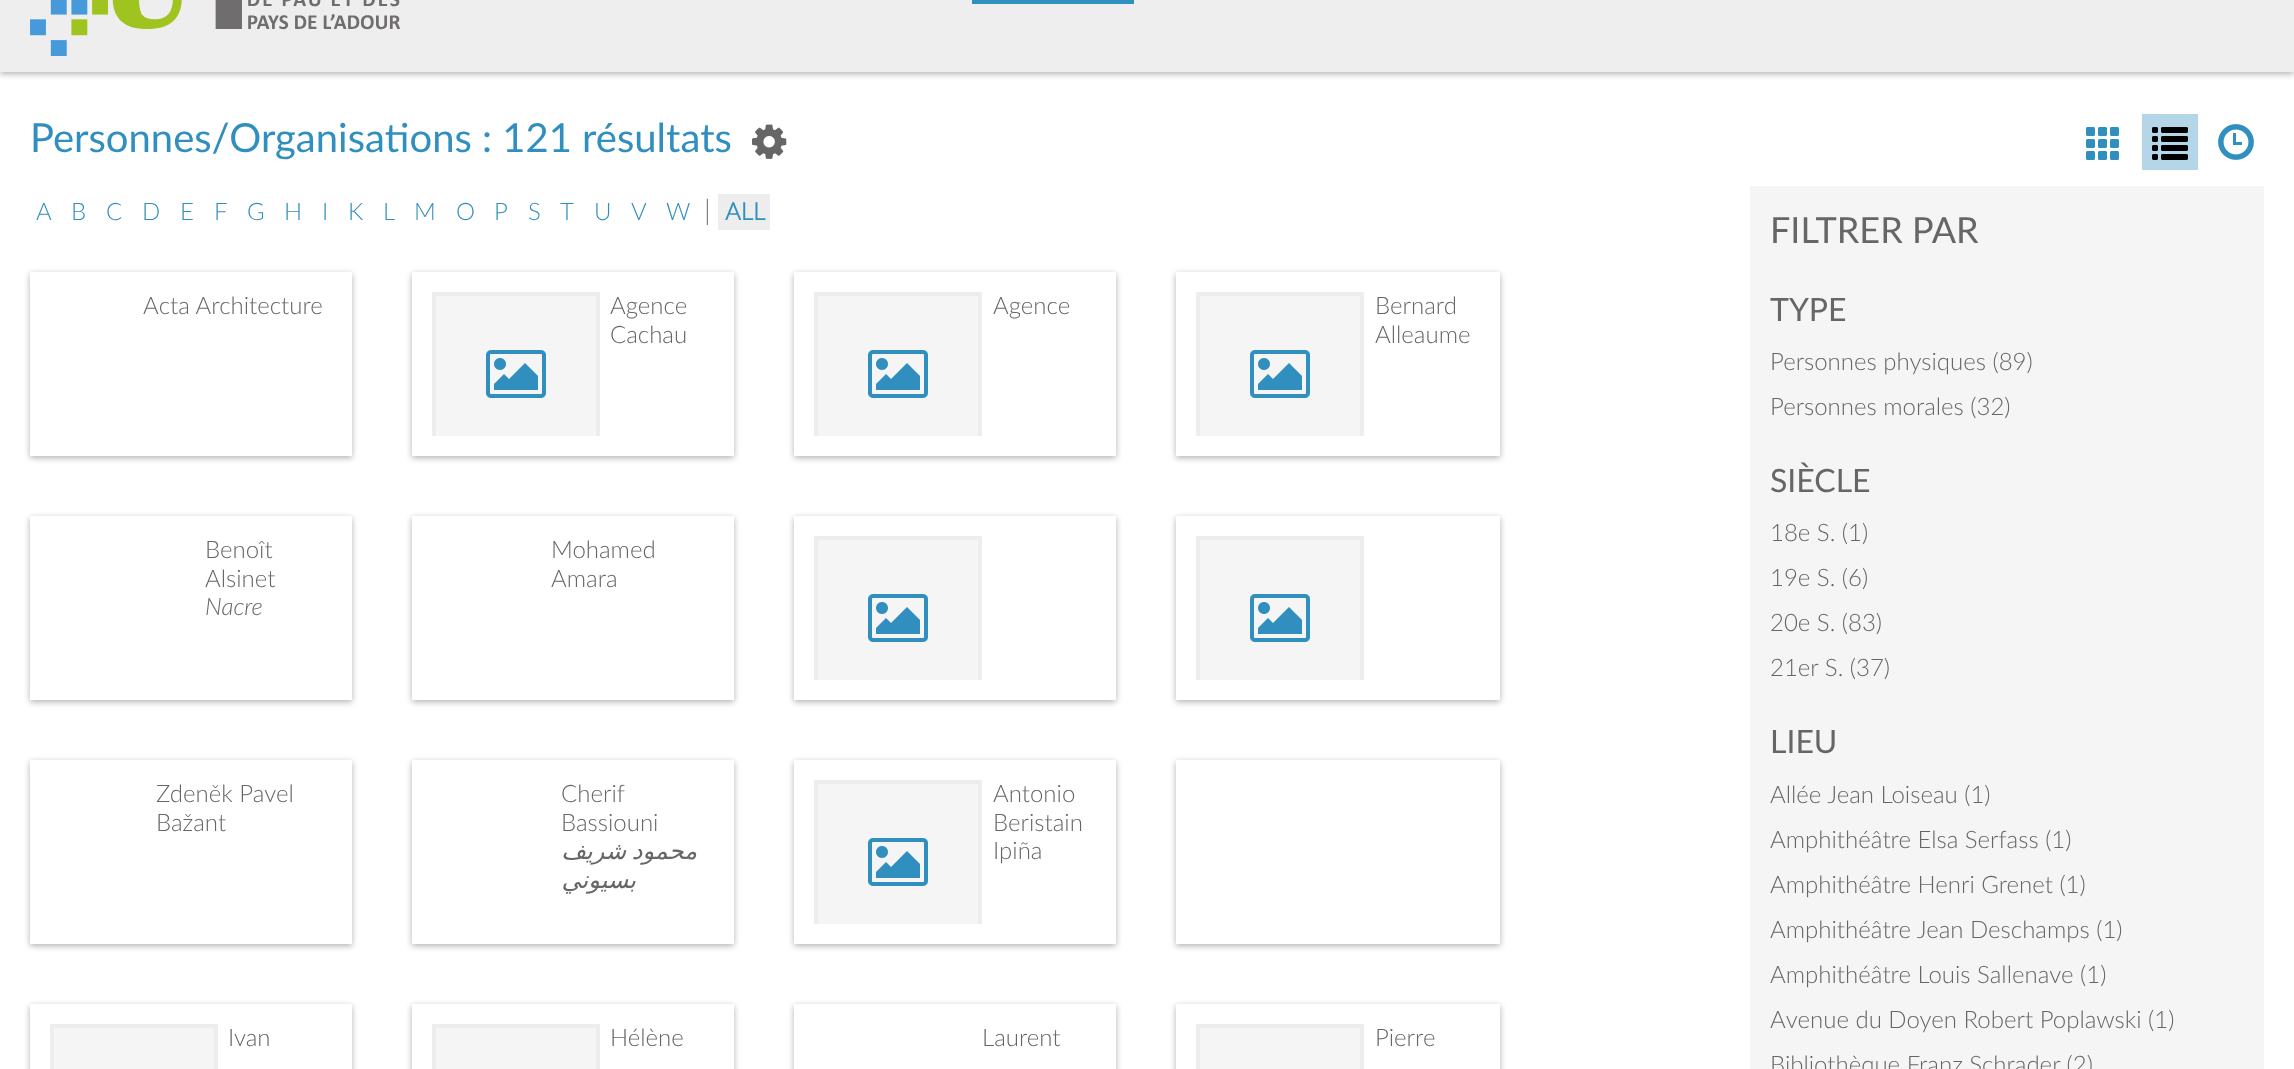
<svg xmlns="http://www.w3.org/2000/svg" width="2294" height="1069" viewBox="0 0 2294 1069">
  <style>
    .t1 { font: 40px Lato; fill: #318fbf; }
    .t2 { font: 300 24px Lato; fill: #318fbf; }
    .t3 { font: 300 28px Lato; fill: #6d6e6d; }
    .t4 { font: bold 24px Lato; fill: #318fbf; }
    .t5 { font: 300 24px Lato; fill: #666; }
    .t6 { font: italic 300 24px Lato; fill: #666; }
    .t7 { font: italic 24px DejaVu Sans; direction: rtl; fill: #666; }
    .t8 { font: 36px Lato; fill: #666; }
    .t9 { font: 32px Lato; fill: #666; }
  </style>
  <defs>
    <clipPath id="clip1"><path d="M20 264H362V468H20ZM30 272H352V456H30Z" clip-rule="evenodd"/></clipPath>
    <clipPath id="clip2"><path d="M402 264H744V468H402ZM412 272H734V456H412Z" clip-rule="evenodd"/></clipPath>
    <clipPath id="clip3"><rect x="432" y="292" width="168" height="144"/></clipPath>
    <clipPath id="clip4"><path d="M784 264H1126V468H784ZM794 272H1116V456H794Z" clip-rule="evenodd"/></clipPath>
    <clipPath id="clip5"><rect x="814" y="292" width="168" height="144"/></clipPath>
    <clipPath id="clip6"><path d="M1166 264H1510V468H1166ZM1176 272H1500V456H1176Z" clip-rule="evenodd"/></clipPath>
    <clipPath id="clip7"><rect x="1196" y="292" width="168" height="144"/></clipPath>
    <clipPath id="clip8"><path d="M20 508H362V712H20ZM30 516H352V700H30Z" clip-rule="evenodd"/></clipPath>
    <clipPath id="clip9"><path d="M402 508H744V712H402ZM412 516H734V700H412Z" clip-rule="evenodd"/></clipPath>
    <clipPath id="clip10"><path d="M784 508H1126V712H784ZM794 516H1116V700H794Z" clip-rule="evenodd"/></clipPath>
    <clipPath id="clip11"><rect x="814" y="536" width="168" height="144"/></clipPath>
    <clipPath id="clip12"><path d="M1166 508H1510V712H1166ZM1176 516H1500V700H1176Z" clip-rule="evenodd"/></clipPath>
    <clipPath id="clip13"><rect x="1196" y="536" width="168" height="144"/></clipPath>
    <clipPath id="clip14"><path d="M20 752H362V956H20ZM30 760H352V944H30Z" clip-rule="evenodd"/></clipPath>
    <clipPath id="clip15"><path d="M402 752H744V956H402ZM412 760H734V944H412Z" clip-rule="evenodd"/></clipPath>
    <clipPath id="clip16"><path d="M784 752H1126V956H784ZM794 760H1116V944H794Z" clip-rule="evenodd"/></clipPath>
    <clipPath id="clip17"><rect x="814" y="780" width="168" height="144"/></clipPath>
    <clipPath id="clip18"><path d="M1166 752H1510V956H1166ZM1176 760H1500V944H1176Z" clip-rule="evenodd"/></clipPath>
    <clipPath id="clip19"><path d="M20 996H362V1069H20ZM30 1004H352V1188H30Z" clip-rule="evenodd"/></clipPath>
    <clipPath id="clip20"><path d="M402 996H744V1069H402ZM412 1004H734V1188H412Z" clip-rule="evenodd"/></clipPath>
    <clipPath id="clip21"><path d="M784 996H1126V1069H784ZM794 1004H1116V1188H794Z" clip-rule="evenodd"/></clipPath>
    <clipPath id="clip22"><path d="M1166 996H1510V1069H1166ZM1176 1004H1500V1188H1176Z" clip-rule="evenodd"/></clipPath>
  </defs>
  <rect width="100%" height="100%" fill="#fff"/>
  <rect x="0" y="-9" width="2294" height="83" fill="#0000004d" filter="blur(3px)"/>
  <rect x="0" y="0" width="2294" height="72" fill="#eee"/>
  <image x="30" y="0" width="370" height="56" href="images/1.png"/>
  <rect x="972" y="0" width="162" height="4" fill="#318fbf"/>
  <text x="30" y="152" class="t1">Personnes/Organisations : 121 résultats</text>
  <image x="752" y="124" width="35" height="35" href="images/2.png"/>
  <text x="36" y="220" class="t2">A</text>
  <text x="71" y="220" class="t2">B</text>
  <text x="106" y="220" class="t2">C</text>
  <text x="142" y="220" class="t2">D</text>
  <text x="180" y="220" class="t2">E</text>
  <text x="214" y="220" class="t2">F</text>
  <text x="247" y="220" class="t2">G</text>
  <text x="284" y="220" class="t2">H</text>
  <text x="322" y="220" class="t2">I</text>
  <text x="348" y="220" class="t2">K</text>
  <text x="383" y="220" class="t2">L</text>
  <text x="414" y="220" class="t2">M</text>
  <text x="456" y="220" class="t2">O</text>
  <text x="494" y="220" class="t2">P</text>
  <text x="528" y="220" class="t2">S</text>
  <text x="560" y="220" class="t2">T</text>
  <text x="594" y="220" class="t2">U</text>
  <text x="631" y="220" class="t2">V</text>
  <text x="666" y="220" class="t2">W</text>
  <text x="704" y="220" class="t3">|</text>
  <rect x="718" y="194" width="52" height="36" fill="#ededed"/>
  <text x="725" y="220" class="t4">ALL</text>
  <g clip-path="url(#clip1)">
    <rect x="30" y="274" width="322" height="184" fill="#0000004d" filter="blur(3px)"/>
  </g>
  <text x="143" y="314" class="t5">Acta Architecture</text>
  <g clip-path="url(#clip2)">
    <rect x="412" y="274" width="322" height="184" fill="#0000004d" filter="blur(3px)"/>
  </g>
  <rect x="436" y="296" width="160" height="140" fill="#f5f5f5"/>
  <g clip-path="url(#clip3)">
    <rect x="434" y="294" width="164" height="160" fill="none" stroke="#ededed" stroke-width="4"/>
  </g>
  <image x="486" y="350" width="60" height="48" href="images/3.png"/>
  <text x="610" y="314" class="t5">Agence</text>
  <text x="610" y="343" class="t5">Cachau</text>
  <g clip-path="url(#clip4)">
    <rect x="794" y="274" width="322" height="184" fill="#0000004d" filter="blur(3px)"/>
  </g>
  <rect x="818" y="296" width="160" height="140" fill="#f5f5f5"/>
  <g clip-path="url(#clip5)">
    <rect x="816" y="294" width="164" height="160" fill="none" stroke="#ededed" stroke-width="4"/>
  </g>
  <image x="868" y="350" width="60" height="48" href="images/3.png"/>
  <text x="993" y="314" class="t5">Agence</text>
  <g clip-path="url(#clip6)">
    <rect x="1176" y="274" width="324" height="184" fill="#0000004d" filter="blur(3px)"/>
  </g>
  <rect x="1200" y="296" width="160" height="140" fill="#f5f5f5"/>
  <g clip-path="url(#clip7)">
    <rect x="1198" y="294" width="164" height="160" fill="none" stroke="#ededed" stroke-width="4"/>
  </g>
  <image x="1250" y="350" width="60" height="48" href="images/3.png"/>
  <text x="1375" y="314" class="t5">Bernard</text>
  <text x="1375" y="343" class="t5">Alleaume</text>
  <g clip-path="url(#clip8)">
    <rect x="30" y="518" width="322" height="184" fill="#0000004d" filter="blur(3px)"/>
  </g>
  <text x="205" y="558" class="t5">Benoît</text>
  <text x="205" y="587" class="t5">Alsinet</text>
  <text x="205" y="615" class="t6">Nacre</text>
  <g clip-path="url(#clip9)">
    <rect x="412" y="518" width="322" height="184" fill="#0000004d" filter="blur(3px)"/>
  </g>
  <text x="551" y="558" class="t5">Mohamed</text>
  <text x="551" y="587" class="t5">Amara</text>
  <g clip-path="url(#clip10)">
    <rect x="794" y="518" width="322" height="184" fill="#0000004d" filter="blur(3px)"/>
  </g>
  <rect x="818" y="540" width="160" height="140" fill="#f5f5f5"/>
  <g clip-path="url(#clip11)">
    <rect x="816" y="538" width="164" height="160" fill="none" stroke="#ededed" stroke-width="4"/>
  </g>
  <image x="868" y="594" width="60" height="48" href="images/3.png"/>
  <g clip-path="url(#clip12)">
    <rect x="1176" y="518" width="324" height="184" fill="#0000004d" filter="blur(3px)"/>
  </g>
  <rect x="1200" y="540" width="160" height="140" fill="#f5f5f5"/>
  <g clip-path="url(#clip13)">
    <rect x="1198" y="538" width="164" height="160" fill="none" stroke="#ededed" stroke-width="4"/>
  </g>
  <image x="1250" y="594" width="60" height="48" href="images/3.png"/>
  <g clip-path="url(#clip14)">
    <rect x="30" y="762" width="322" height="184" fill="#0000004d" filter="blur(3px)"/>
  </g>
  <text x="156" y="802" class="t5">Zdeněk Pavel</text>
  <text x="156" y="831" class="t5">Bažant</text>
  <g clip-path="url(#clip15)">
    <rect x="412" y="762" width="322" height="184" fill="#0000004d" filter="blur(3px)"/>
  </g>
  <text x="561" y="802" class="t5">Cherif</text>
  <text x="561" y="831" class="t5">Bassiouni</text>
  <text x="697" y="859" word-spacing="-2" class="t7">محمود شريف</text>
  <text x="636" y="888" class="t7">بسيوني</text>
  <g clip-path="url(#clip16)">
    <rect x="794" y="762" width="322" height="184" fill="#0000004d" filter="blur(3px)"/>
  </g>
  <rect x="818" y="784" width="160" height="140" fill="#f5f5f5"/>
  <g clip-path="url(#clip17)">
    <rect x="816" y="782" width="164" height="160" fill="none" stroke="#ededed" stroke-width="4"/>
  </g>
  <image x="868" y="838" width="60" height="48" href="images/3.png"/>
  <text x="993" y="802" class="t5">Antonio</text>
  <text x="993" y="831" class="t5">Beristain</text>
  <text x="993" y="859" class="t5">Ipiña</text>
  <g clip-path="url(#clip18)">
    <rect x="1176" y="762" width="324" height="184" fill="#0000004d" filter="blur(3px)"/>
  </g>
  <g clip-path="url(#clip19)">
    <rect x="30" y="1006" width="322" height="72" fill="#0000004d" filter="blur(3px)"/>
  </g>
  <rect x="52" y="1026" width="164" height="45" fill="#f5f5f5" stroke="#ededed" stroke-width="4"/>
  <text x="228" y="1046" class="t5">Ivan</text>
  <g clip-path="url(#clip20)">
    <rect x="412" y="1006" width="322" height="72" fill="#0000004d" filter="blur(3px)"/>
  </g>
  <rect x="434" y="1026" width="164" height="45" fill="#f5f5f5" stroke="#ededed" stroke-width="4"/>
  <text x="610" y="1046" class="t5">Hélène</text>
  <g clip-path="url(#clip21)">
    <rect x="794" y="1006" width="322" height="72" fill="#0000004d" filter="blur(3px)"/>
  </g>
  <text x="982" y="1046" class="t5">Laurent</text>
  <g clip-path="url(#clip22)">
    <rect x="1176" y="1006" width="324" height="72" fill="#0000004d" filter="blur(3px)"/>
  </g>
  <rect x="1198" y="1026" width="164" height="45" fill="#f5f5f5" stroke="#ededed" stroke-width="4"/>
  <text x="1375" y="1046" class="t5">Pierre</text>
  <image x="2086" y="127" width="33" height="33" href="images/4.png"/>
  <rect x="2142" y="114" width="56" height="56" fill="#b4d6e8"/>
  <image x="2152" y="127" width="36" height="33" href="images/5.png"/>
  <image x="2218" y="124" width="36" height="36" href="images/6.png"/>
  <rect x="1750" y="186" width="514" height="883" fill="#f5f5f5"/>
  <text x="1770" y="243" class="t8">FILTRER PAR</text>
  <text x="1770" y="321" class="t9">TYPE</text>
  <text x="1770" y="370" class="t5">Personnes physiques (89)</text>
  <text x="1770" y="415" class="t5">Personnes morales (32)</text>
  <text x="1770" y="492" class="t9">SIÈCLE</text>
  <text x="1770" y="541" class="t5">18e S. (1)</text>
  <text x="1770" y="586" class="t5">19e S. (6)</text>
  <text x="1770" y="631" class="t5">20e S. (83)</text>
  <text x="1770" y="676" class="t5">21er S. (37)</text>
  <text x="1770" y="753" class="t9">LIEU</text>
  <text x="1770" y="803" class="t5">Allée Jean Loiseau (1)</text>
  <text x="1770" y="848" class="t5">Amphithéâtre Elsa Serfass (1)</text>
  <text x="1770" y="893" class="t5">Amphithéâtre Henri Grenet (1)</text>
  <text x="1770" y="938" class="t5">Amphithéâtre Jean Deschamps (1)</text>
  <text x="1770" y="983" class="t5">Amphithéâtre Louis Sallenave (1)</text>
  <text x="1770" y="1028" class="t5">Avenue du Doyen Robert Poplawski (1)</text>
  <text x="1770" y="1073" class="t5">Bibliothèque Franz Schrader (2)</text>
</svg>
